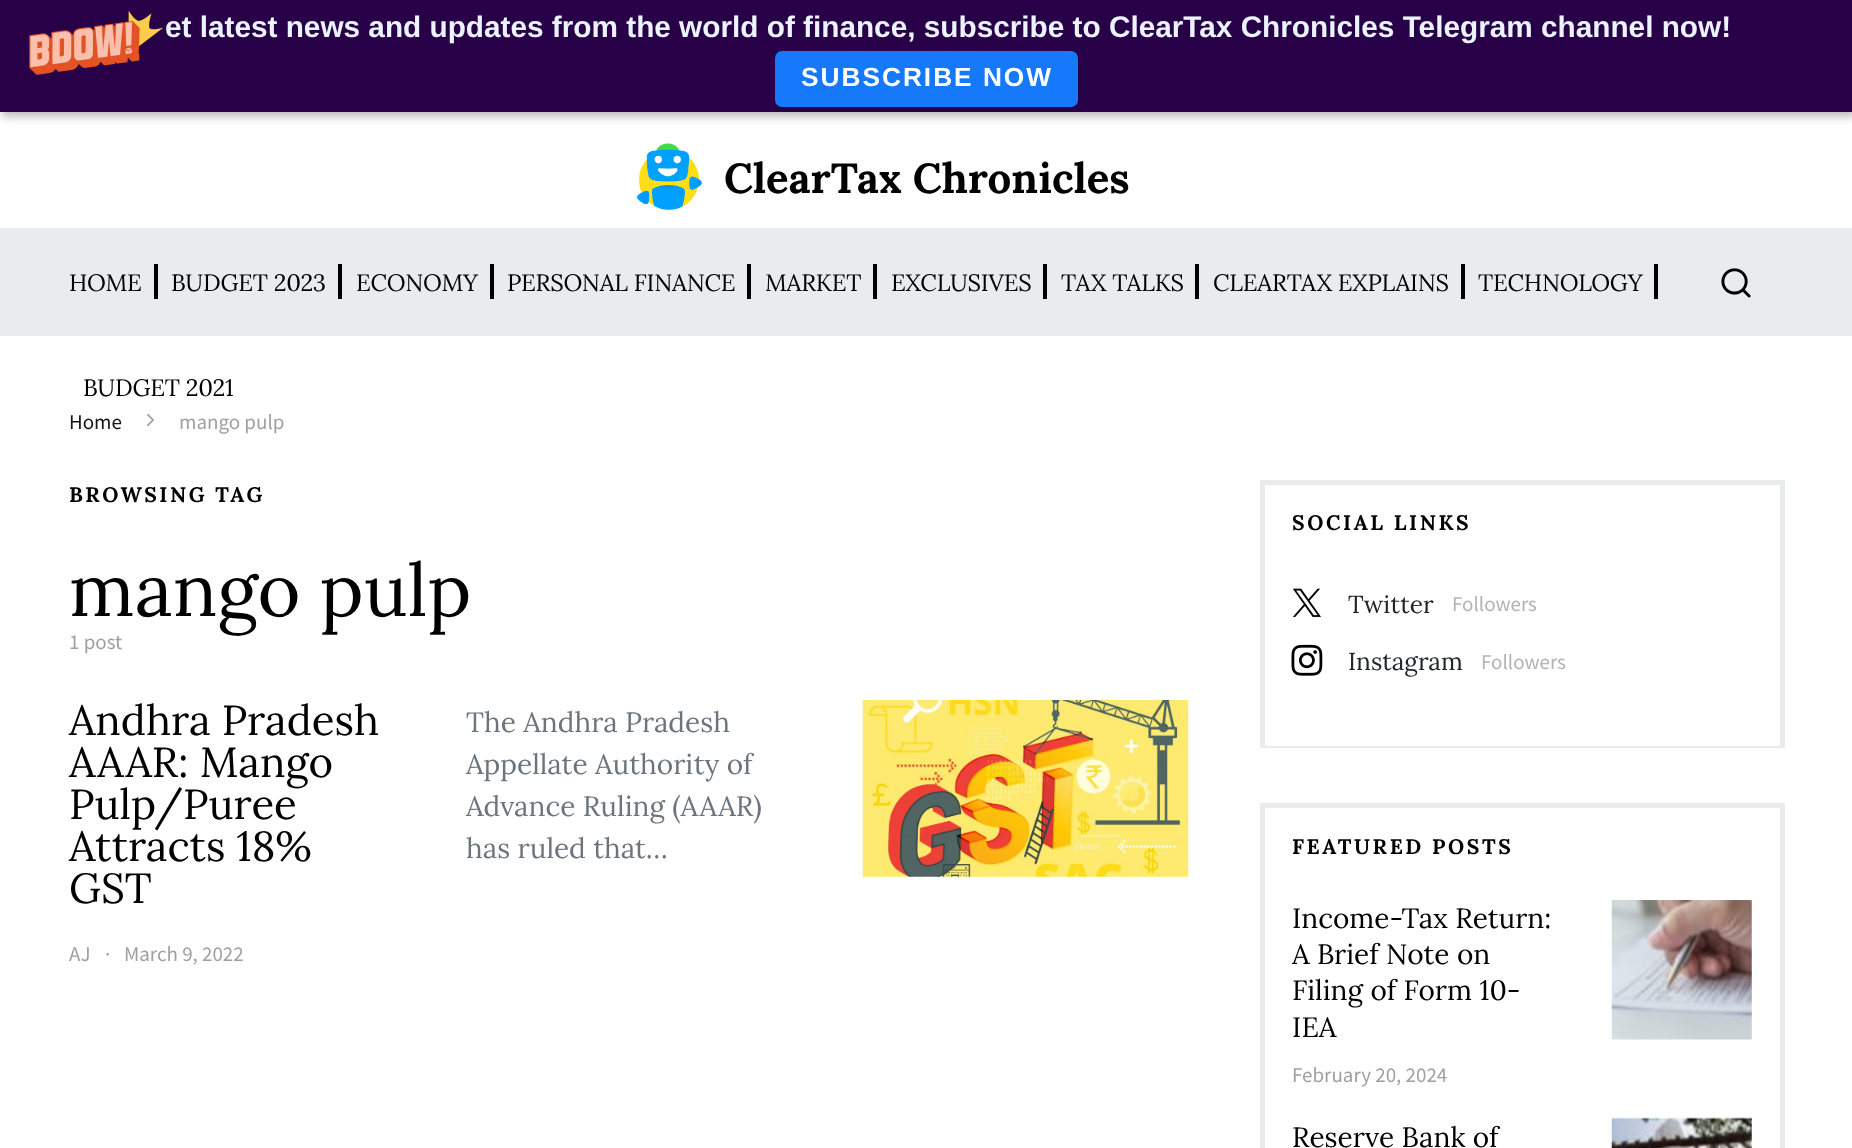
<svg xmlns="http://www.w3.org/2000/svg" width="1852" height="1148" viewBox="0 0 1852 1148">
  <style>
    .t1 { font: bold 29.75px Liberation Sans; fill: #ebf3ff; }
    .t2 { font: bold 26.25px Liberation Sans; letter-spacing: 2px; fill: #fff; }
    .t3 { font: bold 42px Lora; fill: #000; }
    .t4 { font: 23.75px Lora; letter-spacing: -0.25px; fill: #000; }
    .t5 { font: 21px Source Sans Pro; fill: #121416; }
    .t6 { font: 21px Source Sans Pro; fill: #a0a0a0; }
    .t7 { font: bold 21px Lora; letter-spacing: 2.6px; fill: #000; }
    .t8 { font: 73.5px Lora; fill: #000; }
    .t9 { font: 42px Lora; fill: #000; }
    .t10 { font: 28px Lora; fill: #6c757d; }
    .t11 { font: 24.5px Lora; fill: #212529; }
    .t12 { font: 21px Source Sans Pro; fill: #b3b3b3; }
    .t13 { font: 28px Lora; fill: #000; }
  </style>
  <rect width="100%" height="100%" fill="#fff"/>
  <rect x="2" y="5" width="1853" height="112" fill="#00000040" filter="blur(4.5px)"/>
  <rect x="0" y="0" width="1852" height="112" fill="#280048"/>
  <image x="29" y="10" width="135" height="65" href="images/1.png"/>
  <text x="165" y="37" class="t1">et latest news and updates from the world of finance, subscribe to ClearTax Chronicles Telegram channel now!</text>
  <rect x="775" y="51" width="303" height="56" rx="7" fill="#1678fb"/>
  <text x="801" y="86" class="t2">SUBSCRIBE NOW</text>
  <rect x="0" y="228" width="1852" height="108" fill="#e9ecef"/>
  <image x="637" y="143" width="65" height="67" href="images/2.png"/>
  <text x="724" y="193" class="t3">ClearTax Chronicles</text>
  <rect x="154" y="264" width="4" height="35" fill="#000"/>
  <text x="69" y="291" class="t4">HOME</text>
  <rect x="338" y="264" width="4" height="35" fill="#000"/>
  <text x="171" y="291" class="t4">BUDGET 2023</text>
  <rect x="490" y="264" width="4" height="35" fill="#000"/>
  <text x="356" y="291" class="t4">ECONOMY</text>
  <rect x="747" y="264" width="4" height="35" fill="#000"/>
  <text x="507" y="291" class="t4">PERSONAL FINANCE</text>
  <rect x="873" y="264" width="4" height="35" fill="#000"/>
  <text x="765" y="291" class="t4">MARKET</text>
  <rect x="1043" y="264" width="4" height="35" fill="#000"/>
  <text x="891" y="291" class="t4">EXCLUSIVES</text>
  <rect x="1195" y="264" width="4" height="35" fill="#000"/>
  <text x="1061" y="291" class="t4">TAX TALKS</text>
  <rect x="1461" y="264" width="4" height="35" fill="#000"/>
  <text x="1213" y="291" class="t4">CLEARTAX EXPLAINS</text>
  <rect x="1654" y="264" width="4" height="35" fill="#000"/>
  <text x="1478" y="291" class="t4">TECHNOLOGY</text>
  <text x="83" y="396" class="t4">BUDGET 2021</text>
  <image x="1721" y="268" width="30" height="30" href="images/3.png"/>
  <text x="69" y="429" class="t5">Home</text>
  <image x="147" y="414" width="7" height="13" href="images/4.png"/>
  <text x="179" y="429" class="t6">mango pulp</text>
  <text x="69" y="502" class="t7">BROWSING TAG</text>
  <text x="69" y="616" class="t8">mango pulp</text>
  <text x="69" y="649" class="t6">1 post</text>
  <text x="69" y="735" class="t9">Andhra Pradesh</text>
  <text x="69" y="777" class="t9">AAAR: Mango</text>
  <text x="69" y="819" class="t9">Pulp/Puree</text>
  <text x="69" y="861" class="t9">Attracts 18%</text>
  <text x="69" y="903" class="t9">GST</text>
  <text x="466" y="732" class="t10">The Andhra Pradesh</text>
  <text x="466" y="774" class="t10">Appellate Authority of</text>
  <text x="466" y="816" class="t10">Advance Ruling (AAAR)</text>
  <text x="466" y="858" class="t10">has ruled that…</text>
  <text x="69" y="961" class="t6">AJ</text>
  <text x="105" y="961" class="t6">·</text>
  <text x="124" y="961" class="t6">March 9, 2022</text>
  <image x="862" y="700" width="327" height="177" href="images/5.png"/>
  <rect x="1260" y="480" width="525" height="5" fill="#e9ecef"/>
  <rect x="1780" y="480" width="5" height="267" fill="#e9ecef"/>
  <rect x="1260" y="746" width="525" height="2" fill="#e9ecef"/>
  <rect x="1260" y="480" width="5" height="267" fill="#e9ecef"/>
  <text x="1292" y="530" class="t7">SOCIAL LINKS</text>
  <image x="1292" y="588" width="29" height="29" href="images/6.png"/>
  <text x="1348" y="613" class="t11">Twitter</text>
  <text x="1452" y="611" class="t12">Followers</text>
  <image x="1291" y="644" width="32" height="32" href="images/7.png"/>
  <text x="1348" y="670" class="t11">Instagram</text>
  <text x="1481" y="669" class="t12">Followers</text>
  <rect x="1260" y="803" width="525" height="5" fill="#e9ecef"/>
  <rect x="1780" y="803" width="5" height="345" fill="#e9ecef"/>
  <rect x="1260" y="803" width="5" height="345" fill="#e9ecef"/>
  <text x="1292" y="854" class="t7">FEATURED POSTS</text>
  <text x="1292" y="928" class="t13">Income-Tax Return:</text>
  <text x="1292" y="964" class="t13">A Brief Note on</text>
  <text x="1292" y="1000" class="t13">Filing of Form 10-</text>
  <text x="1292" y="1037" class="t13">IEA</text>
  <text x="1292" y="1082" class="t6">February 20, 2024</text>
  <image x="1611" y="900" width="141" height="140" href="images/8.png"/>
  <text x="1292" y="1147" class="t13">Reserve Bank of</text>
  <image x="1611" y="1117" width="141" height="31" href="images/9.png"/>
</svg>
